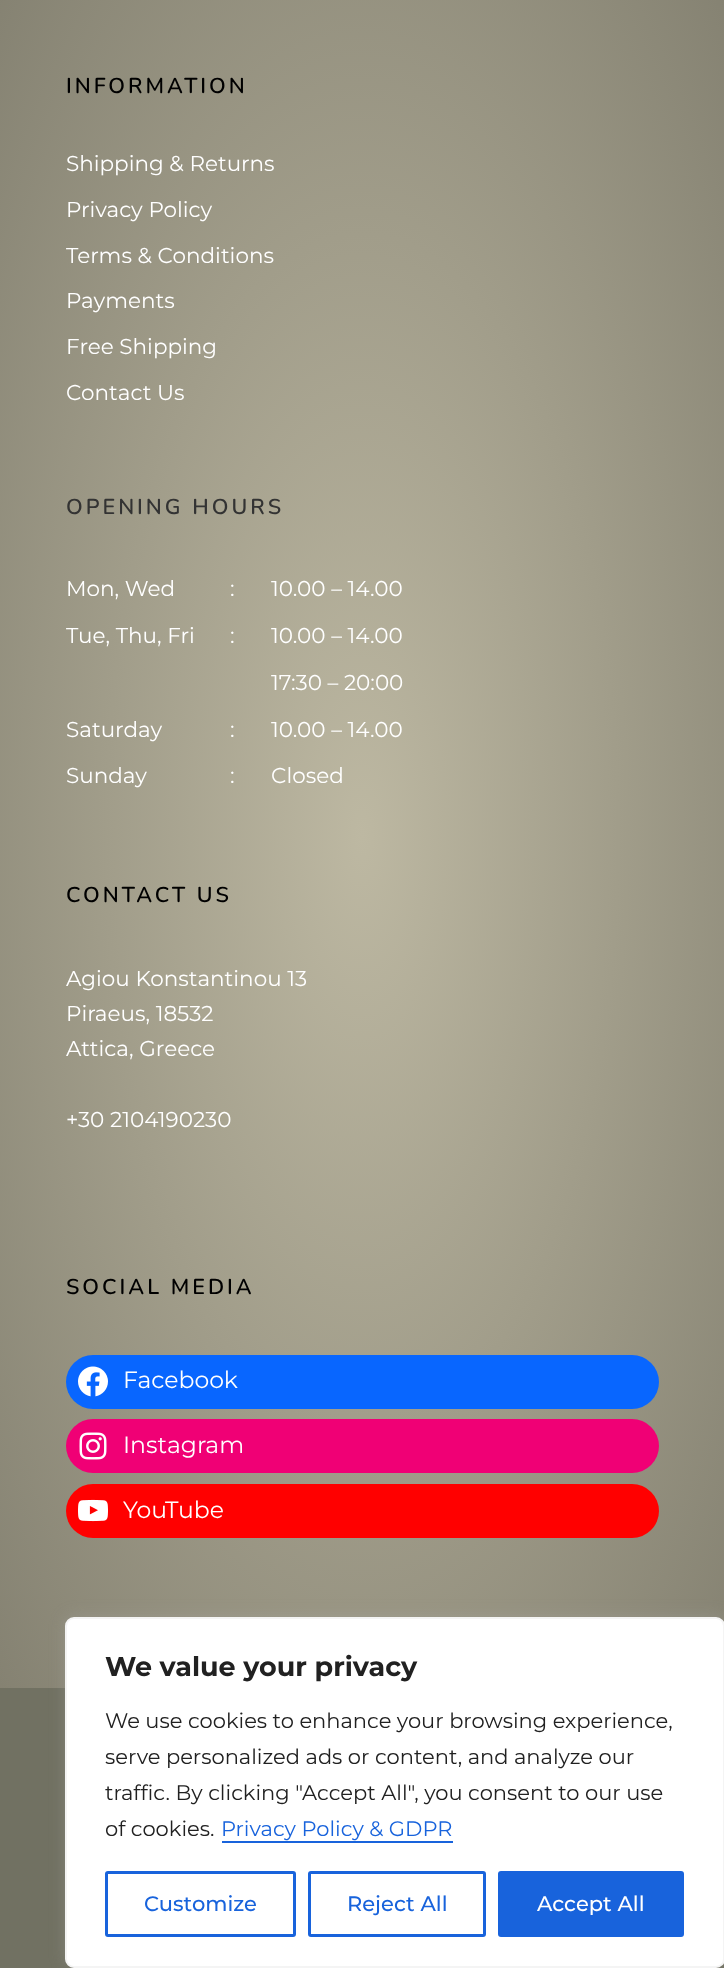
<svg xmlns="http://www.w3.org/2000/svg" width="724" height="1968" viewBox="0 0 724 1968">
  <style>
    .t1 { font: 600 21.5px Nunito; letter-spacing: 3px; fill: #000; }
    .t2 { font: 21.5px Montserrat; fill: #fff; }
    .t3 { font: 600 21.5px Nunito; letter-spacing: 3px; fill: #333; }
    .t4 { font: 23.5px Montserrat; fill: #fff; }
    .t5 { font: bold 27px Montserrat; fill: #212121; }
    .t6 { font: 21px Montserrat; fill: #212121; }
    .t7 { font: 21px Montserrat; fill: #1863dc; }
    .t8 { font: 500 21px Montserrat; fill: #1863dc; }
    .t9 { font: 500 21px Montserrat; fill: #fff; }
  </style>
  <defs>
    <radialGradient id="g1" gradientUnits="userSpaceOnUse" cx="0" cy="0" r="1" gradientTransform="matrix(512 0 0 1204 362 836)"><stop offset="0" stop-color="#bdb8a2"/><stop offset="1" stop-color="#858272"/></radialGradient>
  </defs>
  <rect width="100%" height="100%" fill="#fff"/>
  <rect x="0" y="0" width="724" height="1688" fill="url(#g1)"/>
  <text x="66" y="93" class="t1">INFORMATION</text>
  <text x="66" y="171" class="t2">Shipping &amp; Returns</text>
  <text x="66" y="217" class="t2">Privacy Policy</text>
  <text x="66" y="263" class="t2">Terms &amp; Conditions</text>
  <text x="66" y="308" class="t2">Payments</text>
  <text x="66" y="354" class="t2">Free Shipping</text>
  <text x="66" y="400" class="t2">Contact Us</text>
  <text x="66" y="514" class="t3">OPENING HOURS</text>
  <text x="66" y="596" class="t2">Mon, Wed</text>
  <text x="230" y="596" class="t2">:</text>
  <text x="271" y="596" class="t2">10.00 – 14.00</text>
  <text x="66" y="643" class="t2">Tue, Thu, Fri</text>
  <text x="230" y="643" class="t2">:</text>
  <text x="271" y="643" class="t2">10.00 – 14.00</text>
  <text x="271" y="690" class="t2">17:30 – 20:00</text>
  <text x="66" y="737" class="t2">Saturday</text>
  <text x="230" y="737" class="t2">:</text>
  <text x="271" y="737" class="t2">10.00 – 14.00</text>
  <text x="66" y="783" class="t2">Sunday</text>
  <text x="230" y="783" class="t2">:</text>
  <text x="271" y="783" class="t2">Closed</text>
  <text x="66" y="902" class="t1">CONTACT US</text>
  <text x="66" y="986" class="t2">Agiou Konstantinou 13</text>
  <text x="66" y="1021" class="t2">Piraeus, 18532</text>
  <text x="66" y="1056" class="t2">Attica, Greece</text>
  <text x="66" y="1127" class="t2">+30 2104190230</text>
  <text x="66" y="1294" class="t1">SOCIAL MEDIA</text>
  <rect x="66" y="1355" width="593" height="54" rx="27" fill="#0866ff"/>
  <image x="78" y="1366" width="30" height="31" href="images/1.png"/>
  <text x="123" y="1388" class="t4">Facebook</text>
  <rect x="66" y="1419" width="593" height="54" rx="27" fill="#f00075"/>
  <image x="79" y="1432" width="28" height="28" href="images/2.png"/>
  <text x="123" y="1453" class="t4">Instagram</text>
  <rect x="66" y="1484" width="593" height="54" rx="27" fill="#f00"/>
  <image x="78" y="1499" width="30" height="23" href="images/3.png"/>
  <text x="123" y="1518" class="t4">YouTube</text>
  <rect x="0" y="1688" width="724" height="280" fill="#717162"/>
  <rect x="65" y="1616" width="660" height="351" rx="9" fill="#acabab4d" filter="blur(7.5px)"/>
  <rect x="66" y="1618" width="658" height="349" rx="8" fill="#fff" stroke="#f4f4f4" stroke-width="2"/>
  <text x="105" y="1676" class="t5">We value your privacy</text>
  <text x="105" y="1728" class="t6">We use cookies to enhance your browsing experience,</text>
  <text x="105" y="1764" class="t6">serve personalized ads or content, and analyze our</text>
  <text x="105" y="1800" class="t6">traffic. By clicking "Accept All", you consent to our use</text>
  <text x="105" y="1836" class="t6">of cookies.</text>
  <text x="221" y="1836" class="t7">Privacy Policy &amp; GDPR</text>
  <rect x="222" y="1841" width="231" height="2" fill="#1863dc"/>
  <rect x="106.5" y="1872.5" width="188" height="63" rx="1.5" fill="none" stroke="#1863dc" stroke-width="3"/>
  <text x="144" y="1911" class="t8">Customize</text>
  <rect x="309.5" y="1872.5" width="175" height="63" rx="1.5" fill="none" stroke="#1863dc" stroke-width="3"/>
  <text x="347" y="1911" class="t8">Reject All</text>
  <rect x="499.5" y="1872.5" width="183" height="63" rx="1.5" fill="#1863dc" stroke="#1863dc" stroke-width="3"/>
  <text x="537" y="1911" class="t9">Accept All</text>
</svg>
